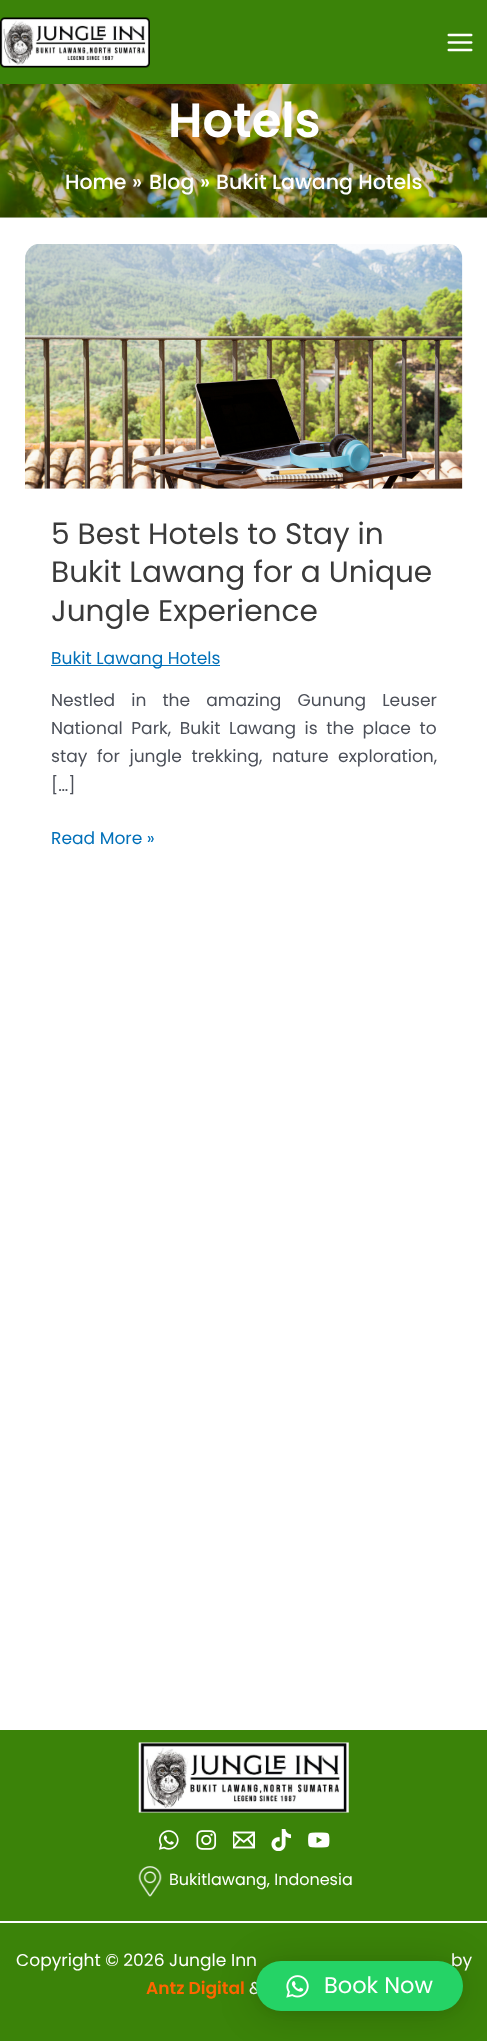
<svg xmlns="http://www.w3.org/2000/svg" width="487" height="2041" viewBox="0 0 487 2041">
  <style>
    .t1 { font: 600 48px Poppins; fill: #fff; }
    .t2 { font: 500 20.5px Poppins; fill: #fff; }
    .t3 { font: 29.6px Poppins; fill: #3a3a3a; }
    .t4 { font: 17.1px Poppins; fill: #0170b9; }
    .t5 { font: 17.1px Poppins; fill: #4b4f58; }
    .t6 { font: 16px Poppins; fill: #fff; }
    .t7 { font: 17.1px Poppins; fill: #fff; }
    .t8 { font: 600 17.1px Poppins; fill: #f60; }
    .t9 { font: 22.5px Poppins; fill: #fff; }
  </style>
  <rect width="100%" height="100%" fill="#fff"/>
  <rect x="0" y="0" width="487" height="84" fill="#3b8309"/>
  <image x="0" y="17" width="150" height="51" href="images/1.png"/>
  <image x="447" y="33" width="26" height="19" href="images/2.png"/>
  <rect x="0" y="217" width="487" height="1" fill="#eee"/>
  <image x="0" y="84" width="487" height="134" href="images/3.png"/>
  <text x="168" y="137" class="t1">Hotels</text>
  <text x="65" y="189" class="t2">Home</text>
  <text x="132" y="189" class="t2">»</text>
  <text x="149" y="189" class="t2">Blog</text>
  <text x="200" y="189" class="t2">»</text>
  <text x="216" y="189" class="t2">Bukit Lawang Hotels</text>
  <image x="25" y="244" width="438" height="245" href="images/4.png"/>
  <text x="51" y="544" class="t3">5 Best Hotels to Stay in</text>
  <text x="51" y="582" class="t3">Bukit Lawang for a Unique</text>
  <text x="51" y="621" class="t3">Jungle Experience</text>
  <rect x="51" y="665" width="169" height="1" fill="#0170b9"/>
  <text x="51" y="664" class="t4">Bukit Lawang Hotels</text>
  <text x="51" y="706" word-spacing="11.5" class="t5">Nestled in the amazing Gunung Leuser</text>
  <text x="51" y="734" word-spacing="4" class="t5">National Park, Bukit Lawang is the place to</text>
  <text x="51" y="762" word-spacing="5" class="t5">stay for jungle trekking, nature exploration,</text>
  <text x="51" y="791" class="t5">[…]</text>
  <text x="51" y="844" class="t4">Read More »</text>
  <rect x="0" y="1730" width="487" height="191" fill="#3b8309"/>
  <image x="138" y="1742" width="211" height="71" href="images/5.png"/>
  <image x="159" y="1830" width="20" height="20" href="images/6.png"/>
  <image x="196" y="1830" width="21" height="20" href="images/7.png"/>
  <image x="233" y="1831" width="22" height="18" href="images/8.png"/>
  <image x="271" y="1829" width="21" height="22" href="images/9.png"/>
  <image x="308" y="1832" width="22" height="16" href="images/10.png"/>
  <image x="138" y="1866" width="24" height="31" href="images/11.png"/>
  <text x="169" y="1885" class="t6">Bukitlawang, Indonesia</text>
  <rect x="0" y="1923" width="487" height="118" fill="#3b8309"/>
  <text x="16" y="1966" class="t7">Copyright © 2026 Jungle Inn</text>
  <text x="451" y="1966" class="t7">by</text>
  <text x="146" y="1994" class="t8">Antz Digital</text>
  <text x="249" y="1994" class="t7">&amp;</text>
  <rect x="256" y="1964" width="207" height="50" rx="25" fill="#00000029" filter="blur(20px)"/>
  <rect x="256" y="1963" width="207" height="50" rx="25" fill="#0000000f" filter="blur(4px)"/>
  <rect x="256" y="1961" width="207" height="50" rx="25" fill="#25d366"/>
  <image x="286" y="1975" width="23" height="23" href="images/12.png"/>
  <text x="324" y="1993" class="t9">Book Now</text>
</svg>
